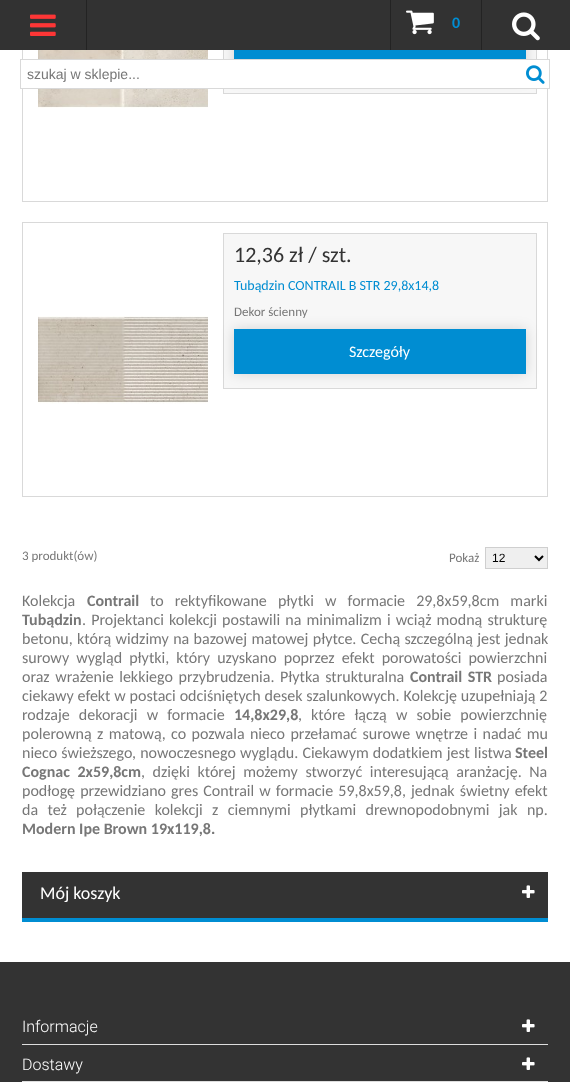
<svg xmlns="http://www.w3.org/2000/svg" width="570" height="1082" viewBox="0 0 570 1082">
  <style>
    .t1 { font: bold 16px Carlito; fill: #008dd2; }
    .t2 { font: 14px Liberation Sans; fill: #777; }
    .t3 { font: 22px Carlito; fill: #333; }
    .t4 { font: 14px Carlito; fill: #008dd2; }
    .t5 { font: 13px Carlito; fill: #777; }
    .t6 { font: 16px Carlito; fill: #fff; }
    .t7 { font: 12px Liberation Sans; fill: #000; }
    .t8 { font: 16px Carlito; fill: #777; }
    .t9 { font: bold 16px Carlito; fill: #777; }
    .t10 { font: 18px Carlito; fill: #fff; }
    .t11 { font: 300 16px Roboto; fill: #fff; }
  </style>
  <rect width="100%" height="100%" fill="#fff"/>
  <rect x="22.5" y="-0.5" width="525" height="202" fill="none" stroke="#d9d9d9"/>
  <rect x="224" y="50" width="312" height="43" fill="#f7f7f7"/>
  <rect x="223.5" y="-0.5" width="313" height="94" fill="none" stroke="#d9d9d9"/>
  <rect x="234" y="34" width="292" height="45" fill="#00000024" filter="blur(6.5px)"/>
  <rect x="0" y="0" width="570" height="50" fill="#323232"/>
  <rect x="86" y="0" width="1" height="50" fill="#232323"/>
  <image x="30" y="14" width="26" height="22" href="images/1.png"/>
  <rect x="481" y="0" width="1" height="50" fill="#232323"/>
  <image x="512" y="12" width="28" height="29" href="images/2.png"/>
  <rect x="390" y="0" width="1" height="50" fill="#232323"/>
  <image x="406" y="10" width="28" height="25" href="images/3.png"/>
  <text x="452" y="28" class="t1">0</text>
  <image x="38" y="50" width="170" height="58" href="images/5.png"/>
  <rect x="22" y="60" width="526" height="28" fill="#fff"/>
  <rect x="20.5" y="59.5" width="529" height="29" fill="none" stroke="#d9d9d9"/>
  <text x="27" y="79" class="t2">szukaj w sklepie...</text>
  <image x="526" y="65" width="19" height="19" href="images/4.png"/>
  <rect x="234" y="50" width="292" height="9" fill="#008dd2"/>
  <rect x="22.5" y="222.5" width="525" height="274" fill="none" stroke="#d9d9d9"/>
  <image x="38" y="316" width="170" height="88" href="images/6.png"/>
  <rect x="223.5" y="233.5" width="313" height="155" fill="#f7f7f7" stroke="#d9d9d9"/>
  <text x="234" y="262" class="t3">12,36 zł / szt.</text>
  <text x="234" y="290" class="t4">Tubądzin CONTRAIL B STR 29,8x14,8</text>
  <text x="234" y="316" class="t5">Dekor ścienny</text>
  <rect x="234" y="329" width="292" height="45" fill="#00000024" filter="blur(6.5px)"/>
  <rect x="234" y="329" width="292" height="45" fill="#008dd2"/>
  <text x="349" y="357" class="t6">Szczegóły</text>
  <text x="22" y="560" class="t5">3 produkt(ów)</text>
  <text x="449" y="562" class="t5">Pokaż</text>
  <rect x="485.5" y="547.5" width="62" height="21" fill="#efefef" stroke="#cfcfcf"/>
  <path d="M535 556L539 560L543 556" fill="none" stroke="#000" stroke-width="2"/>
  <text x="492" y="562" class="t7">12</text>
  <text x="22" y="606" class="t8">Kolekcja</text>
  <text x="87" y="606" class="t9">Contrail</text>
  <text x="150" y="606" word-spacing="7.5" class="t8">to rektyfikowane płytki w formacie 29,8x59,8cm marki</text>
  <text x="22" y="625" class="t9">Tubądzin</text>
  <text x="82" y="625" word-spacing="1.5" class="t8">. Projektanci kolekcji postawili na minimalizm i wciąż modną strukturę</text>
  <text x="22" y="644" word-spacing="0.75" class="t8">betonu, którą widzimy na bazowej matowej płytce. Cechą szczególną jest jednak</text>
  <text x="22" y="663" word-spacing="3.5" class="t8">surowy wygląd płytki, który uzyskano poprzez efekt porowatości powierzchni</text>
  <text x="22" y="682" word-spacing="2" class="t8">oraz wrażenie lekkiego przybrudzenia. Płytka strukturalna</text>
  <text x="410" y="682" word-spacing="2" class="t9">Contrail STR</text>
  <text x="497" y="682" class="t8">posiada</text>
  <text x="22" y="701" word-spacing="0.25" class="t8">ciekawy efekt w postaci odciśniętych desek szalunkowych. Kolekcję uzupełniają 2</text>
  <text x="22" y="720" word-spacing="5.5" class="t8">rodzaje dekoracji w formacie</text>
  <text x="234" y="720" class="t9">14,8x29,8</text>
  <text x="298" y="720" word-spacing="5.5" class="t8">, które łączą w sobie powierzchnię</text>
  <text x="22" y="739" word-spacing="1.75" class="t8">polerowną z matową, co pozwala nieco przełamać surowe wnętrze i nadać mu</text>
  <text x="22" y="758" word-spacing="0.5" class="t8">nieco świeższego, nowoczesnego wyglądu. Ciekawym dodatkiem jest listwa</text>
  <text x="515" y="758" class="t9">Steel</text>
  <text x="22" y="777" word-spacing="4" class="t9">Cognac 2x59,8cm</text>
  <text x="141" y="777" word-spacing="4" class="t8">, dzięki której możemy stworzyć interesującą aranżację. Na</text>
  <text x="22" y="796" word-spacing="1.5" class="t8">podłogę przewidziano gres Contrail w formacie 59,8x59,8, jednak świetny efekt</text>
  <text x="22" y="815" word-spacing="5.75" class="t8">da też połączenie kolekcji z ciemnymi płytkami drewnopodobnymi jak np.</text>
  <text x="22" y="834" class="t9">Modern Ipe Brown 19x119,8.</text>
  <rect x="22" y="872" width="526" height="46" fill="#333"/>
  <rect x="22" y="918" width="526" height="4" fill="#008dd2"/>
  <text x="40" y="899" class="t10">Mój koszyk</text>
  <image x="522" y="885" width="13" height="13" href="images/7.png"/>
  <rect x="0" y="962" width="570" height="120" fill="#333"/>
  <rect x="22" y="1044" width="526" height="1" fill="#ddd"/>
  <text x="22" y="1032" class="t11">Informacje</text>
  <image x="522" y="1019" width="13" height="13" href="images/7.png"/>
  <rect x="22" y="1081" width="526" height="1" fill="#ddd"/>
  <text x="22" y="1070" class="t11">Dostawy</text>
  <image x="522" y="1057" width="13" height="13" href="images/7.png"/>
</svg>
